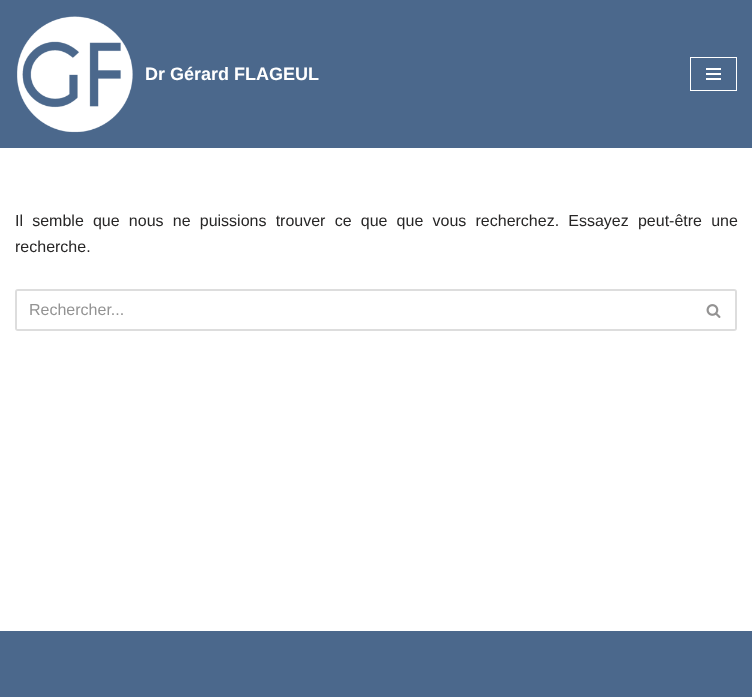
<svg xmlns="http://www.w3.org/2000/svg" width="752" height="697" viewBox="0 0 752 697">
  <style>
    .t1 { font: bold 18px Liberation Sans; fill: #fff; }
    .t2 { font: 16px Liberation Sans; fill: #272626; }
    .t3 { font: 16px Liberation Sans; fill: #939393; }
  </style>
  <rect width="100%" height="100%" fill="#fff"/>
  <rect x="0" y="0" width="752" height="148" fill="#4b688c"/>
  <image x="17" y="16" width="116" height="117" href="images/1.png"/>
  <text x="145" y="80" class="t1">Dr Gérard FLAGEUL</text>
  <rect x="690.5" y="57.5" width="46" height="33" fill="none" stroke="#fff"/>
  <rect x="706" y="68" width="15" height="2" fill="#fff"/>
  <rect x="706" y="73" width="15" height="2" fill="#fff"/>
  <rect x="706" y="78" width="15" height="2" fill="#fff"/>
  <text x="15" y="226" word-spacing="4.75" class="t2">Il semble que nous ne puissions trouver ce que que vous recherchez. Essayez peut-être une</text>
  <text x="15" y="252" class="t2">recherche.</text>
  <path d="M18 289H692V331H18C16 331 15 330 15 328V292C15 290 16 289 18 289ZM18 291H692V329H18C17 329 17 329 17 328V292C17 291 17 291 18 291Z" fill="#ddd" fill-rule="evenodd"/>
  <text x="29" y="315" class="t3">Rechercher...</text>
  <path d="M692 289H734C736 289 737 290 737 292V328C737 330 736 331 734 331H692ZM692 291H734C735 291 735 291 735 292V328C735 329 735 329 734 329H692Z" fill="#ddd" fill-rule="evenodd"/>
  <image x="706" y="304" width="15" height="14" href="images/2.png"/>
  <rect x="0" y="631" width="752" height="66" fill="#4b688c"/>
</svg>
